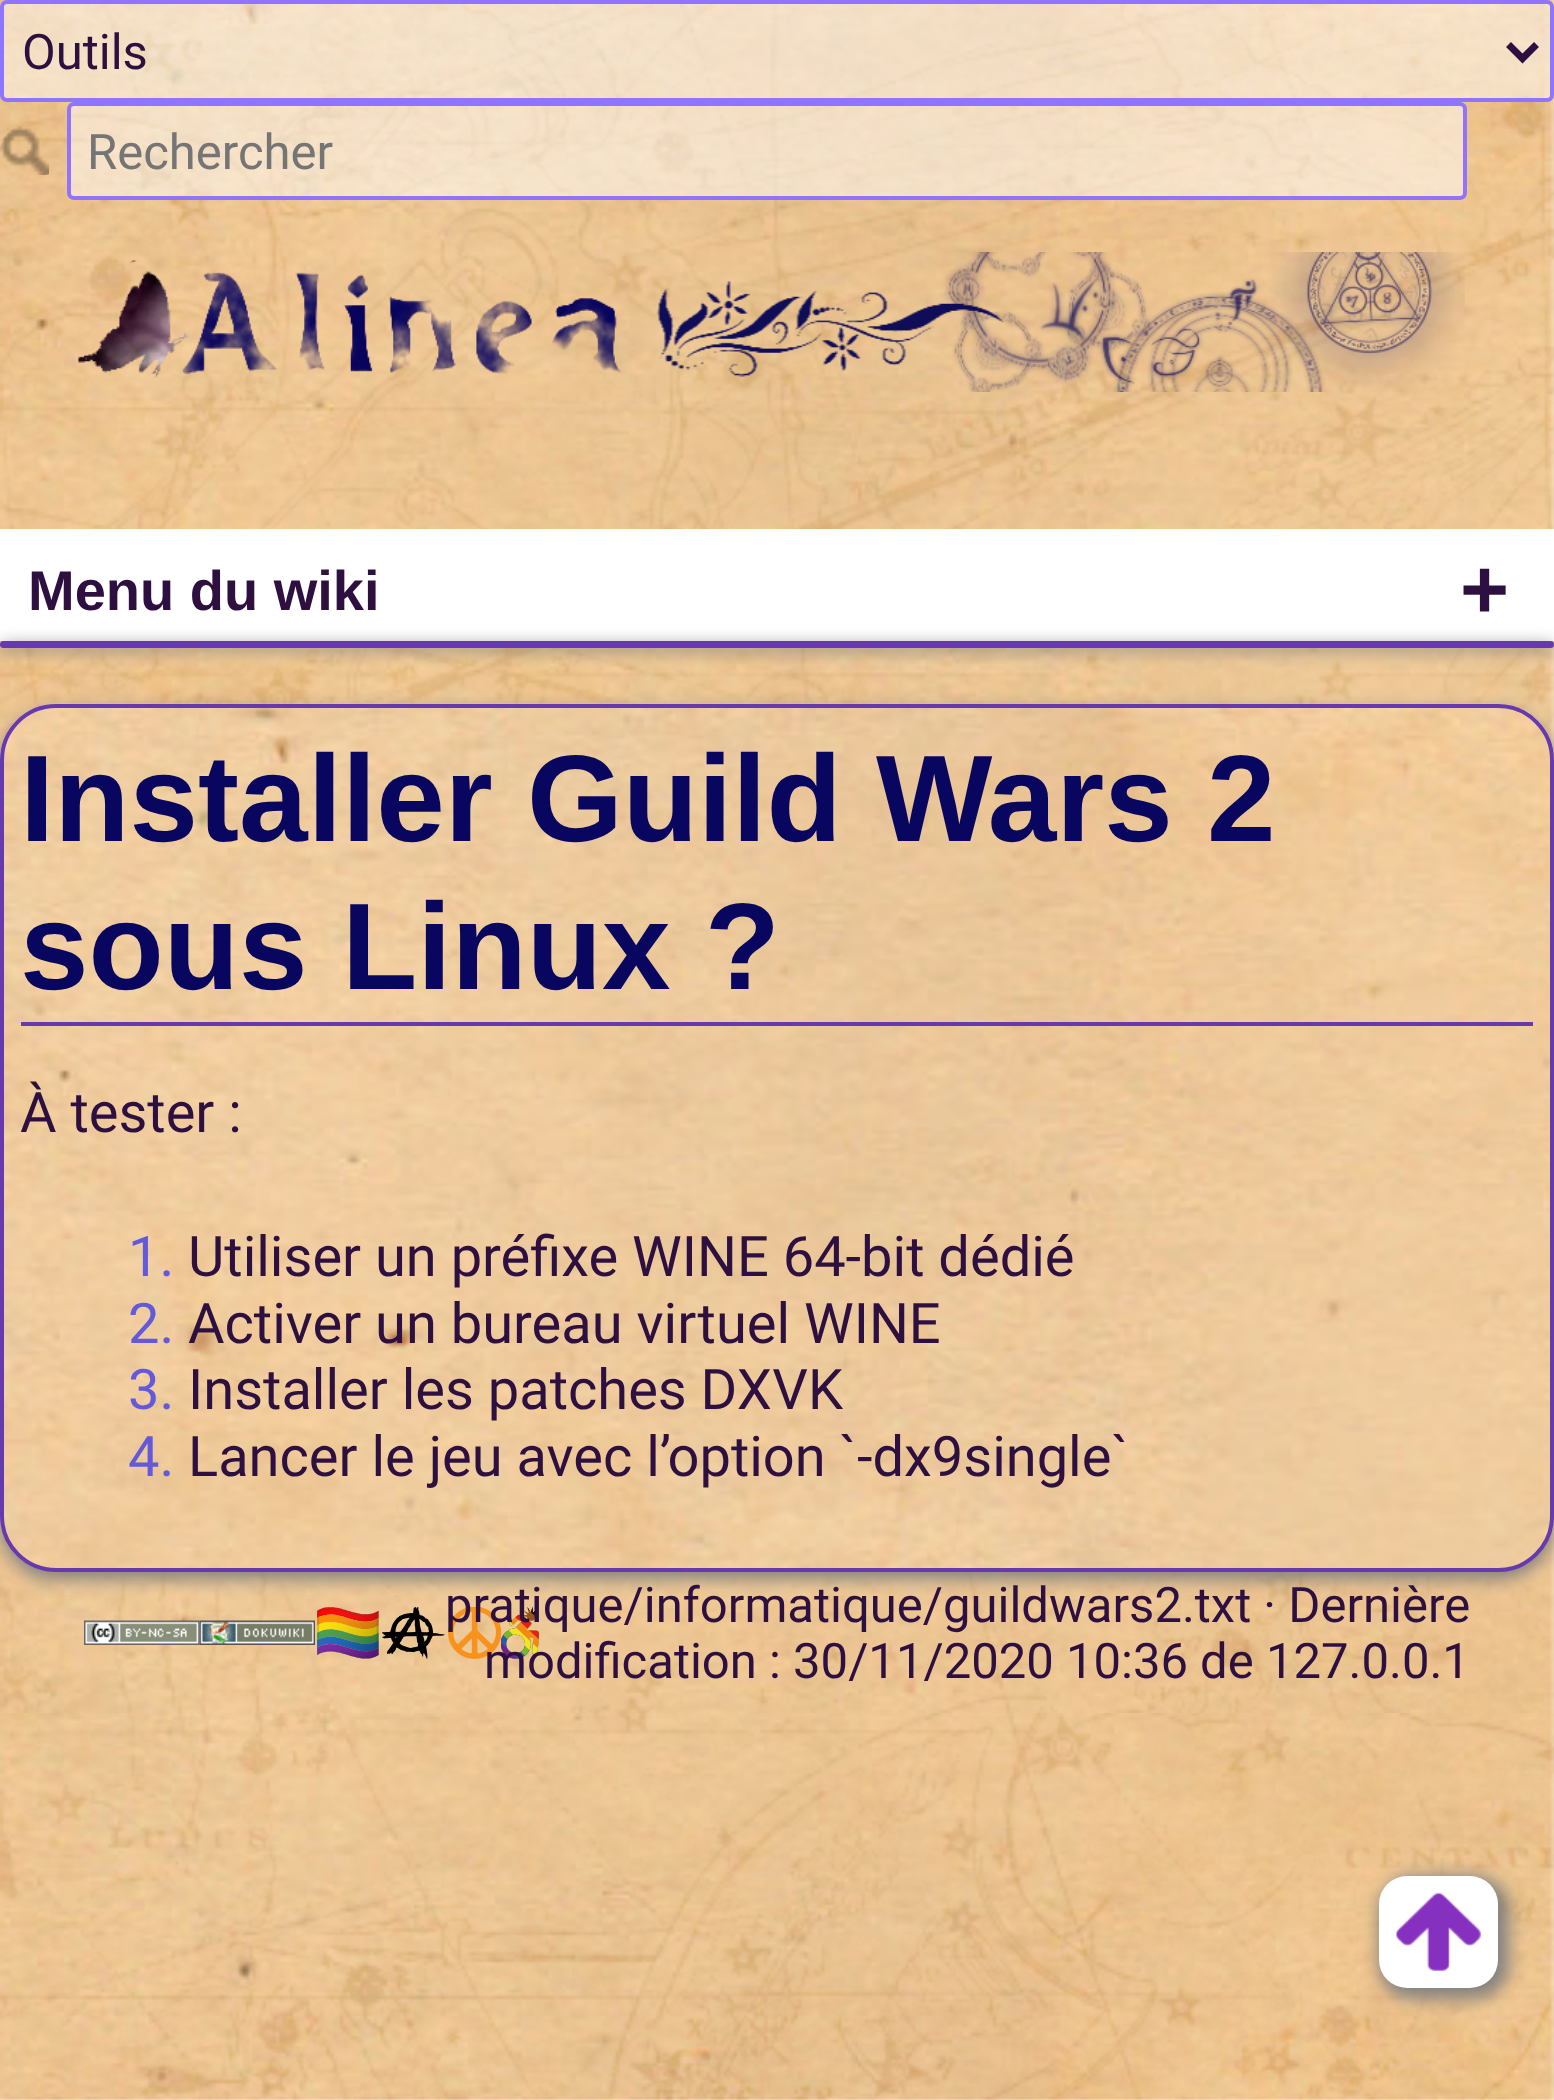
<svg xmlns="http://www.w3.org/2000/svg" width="1554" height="2100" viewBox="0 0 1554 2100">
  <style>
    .t1 { font: 49px Roboto; fill: #2d1040; }
    .t2 { font: 49px Roboto; fill: #757575; }
    .t3 { font: bold 56px Liberation Sans; fill: #2d1040; }
    .t4 { font: bold 84px Liberation Sans; fill: #2d1040; }
    .t5 { font: bold 123.25px Liberation Sans; fill: #08065e; }
    .t6 { font: 56px Roboto; fill: #2d1040; }
    .t7 { font: 56px Roboto; fill: #6359db; }
    .t8 { font: 56px Noto Color Emoji; fill: #483d8b; }
  </style>
  <rect width="100%" height="100%" fill="#fff"/>
  <image x="0" y="0" width="1554" height="2100" href="images/1.png"/>
  <rect x="2" y="2" width="1550" height="98" rx="5" fill="#ffffff80" stroke="#9073ff" stroke-width="4"/>
  <path d="M1508.5 44.5L1522.5 58.5L1536.5 44.5" fill="none" stroke="#2d1040" stroke-width="7"/>
  <text x="22" y="69" class="t1">Outils</text>
  <image x="0" y="126" width="49" height="49" href="images/2.png"/>
  <rect x="69" y="104" width="1396" height="94" rx="5" fill="#ffffff80" stroke="#9073ff" stroke-width="4"/>
  <text x="87" y="169" class="t2">Rechercher</text>
  <image x="78" y="252" width="1387" height="140" href="images/3.png"/>
  <rect x="0" y="529" width="1554" height="112" fill="#fff"/>
  <text x="28" y="610" class="t3">Menu du wiki</text>
  <text x="1460" y="618" class="t4">+</text>
  <rect x="0" y="644" width="1554" height="7" rx="3.5" fill="#808080" filter="blur(7.5px)"/>
  <rect x="0" y="641" width="1554" height="7" rx="3.5" fill="#6639af"/>
  <rect x="0" y="711" width="1554" height="868" rx="56" fill="#808080" filter="blur(8.5px)"/>
  <image x="0" y="703" width="1554" height="869" href="images/4.png"/>
  <rect x="2" y="706" width="1550" height="864" rx="54" fill="none" stroke="#6639af" stroke-width="4"/>
  <rect x="21" y="1022" width="1512" height="4" fill="#6639af"/>
  <text x="20" y="841" class="t5">Installer Guild Wars 2</text>
  <text x="20" y="989" class="t5">sous Linux ?</text>
  <text x="20" y="1132" class="t6">À tester :</text>
  <text x="128" y="1276" class="t7">1.</text>
  <text x="188" y="1276" class="t6">Utiliser un préfixe WINE 64-bit dédié</text>
  <text x="128" y="1343" class="t7">2.</text>
  <text x="188" y="1343" class="t6">Activer un bureau virtuel WINE</text>
  <text x="128" y="1409" class="t7">3.</text>
  <text x="188" y="1409" class="t6">Installer les patches DXVK</text>
  <text x="128" y="1476" class="t7">4.</text>
  <text x="188" y="1476" class="t6">Lancer le jeu avec l’option `-dx9single`</text>
  <image x="84" y="1620" width="116" height="25" href="images/5.png"/>
  <image x="199" y="1620" width="116" height="25" href="images/6.png"/>
  <text x="313" y="1652" class="t8">🏳️‍🌈</text>
  <image x="382" y="1607" width="63" height="52" href="images/7.png"/>
  <image x="448" y="1607" width="53" height="52" href="images/8.png"/>
  <image x="501" y="1607" width="38" height="52" href="images/9.png"/>
  <text x="445" y="1622" class="t1">pratique/informatique/guildwars2.txt · Dernière</text>
  <text x="484" y="1678" class="t1">modification : 30/11/2020 10:36 de 127.0.0.1</text>
  <rect x="1379" y="1876" width="130" height="123" rx="35" fill="#808080" filter="blur(8.5px)"/>
  <rect x="1379" y="1876" width="119" height="112" rx="28" fill="#fff"/>
  <image x="1396" y="1892" width="86" height="79" href="images/10.png"/>
</svg>
